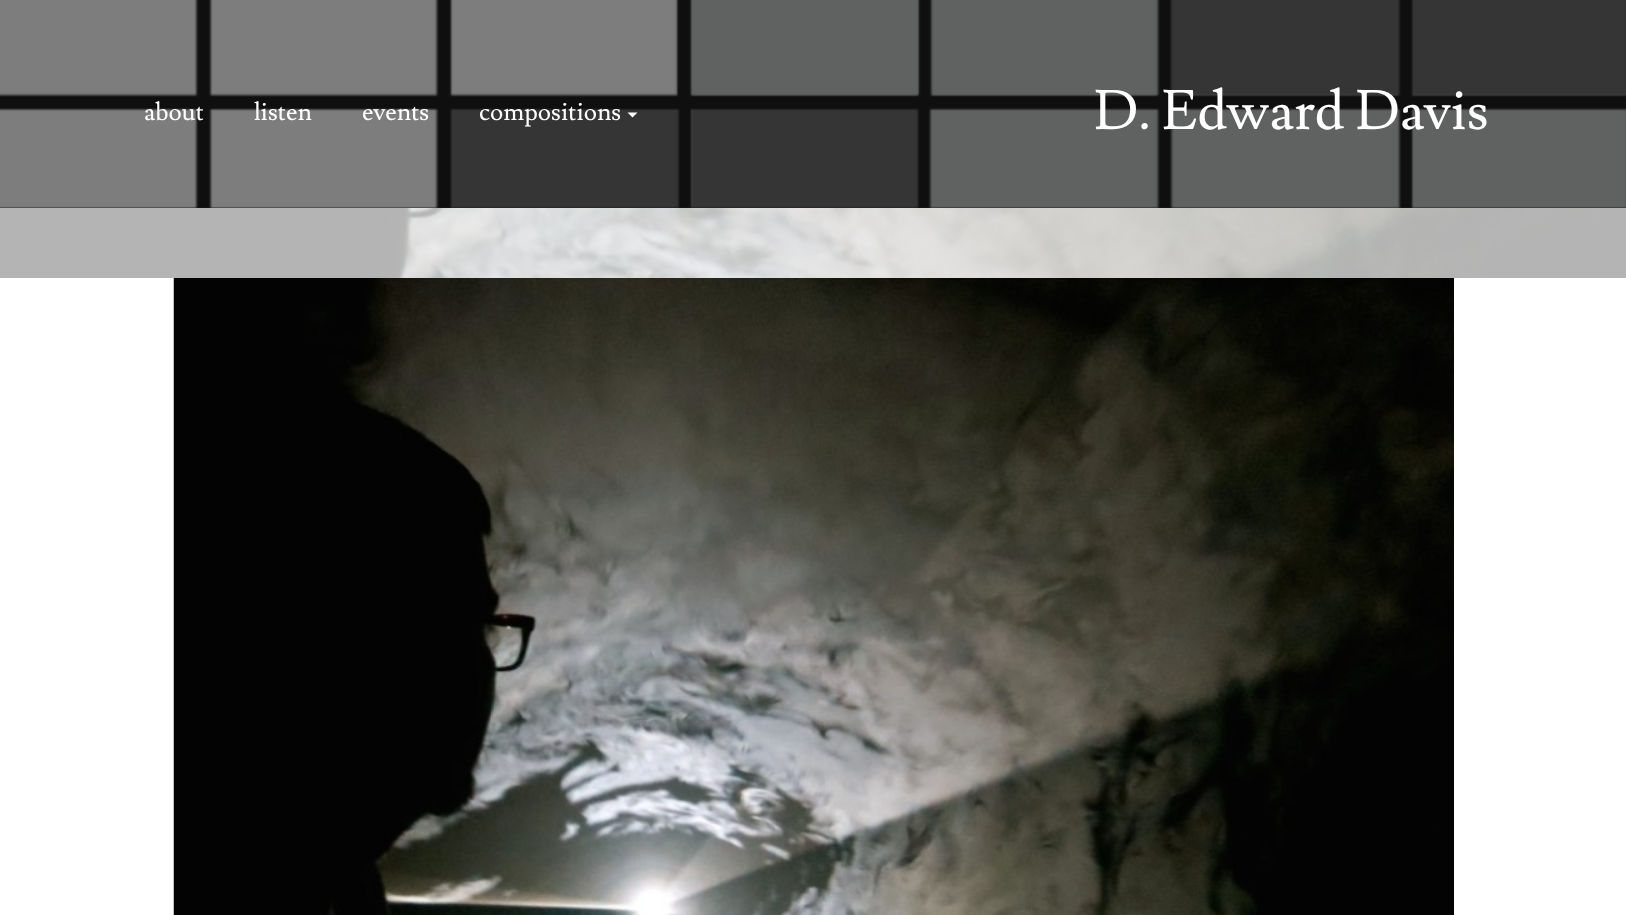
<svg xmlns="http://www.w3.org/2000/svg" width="1626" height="915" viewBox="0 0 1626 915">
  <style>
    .t1 { font: 25px Lusitana; fill: #fff; }
    .t2 { font: 55px Lusitana; fill: #fff; }
  </style>
  <rect width="100%" height="100%" fill="#fff"/>
  <rect x="0" y="0" width="1626" height="208" fill="#1a1a1a"/>
  <image x="0" y="0" width="1626" height="208" href="images/1.png"/>
  <text x="144" y="120" class="t1">about</text>
  <text x="254" y="120" class="t1">listen</text>
  <text x="362" y="120" class="t1">events</text>
  <text x="479" y="120" class="t1">compositions</text>
  <path d="M627.5 112.5H637.5L632.5 117.5Z" fill="#fff"/>
  <text x="1094" y="129" class="t2">D. Edward Davis</text>
  <image x="0" y="208" width="1626" height="70" href="images/2.png"/>
  <image x="173" y="278" width="1281" height="637" href="images/3.png"/>
</svg>
